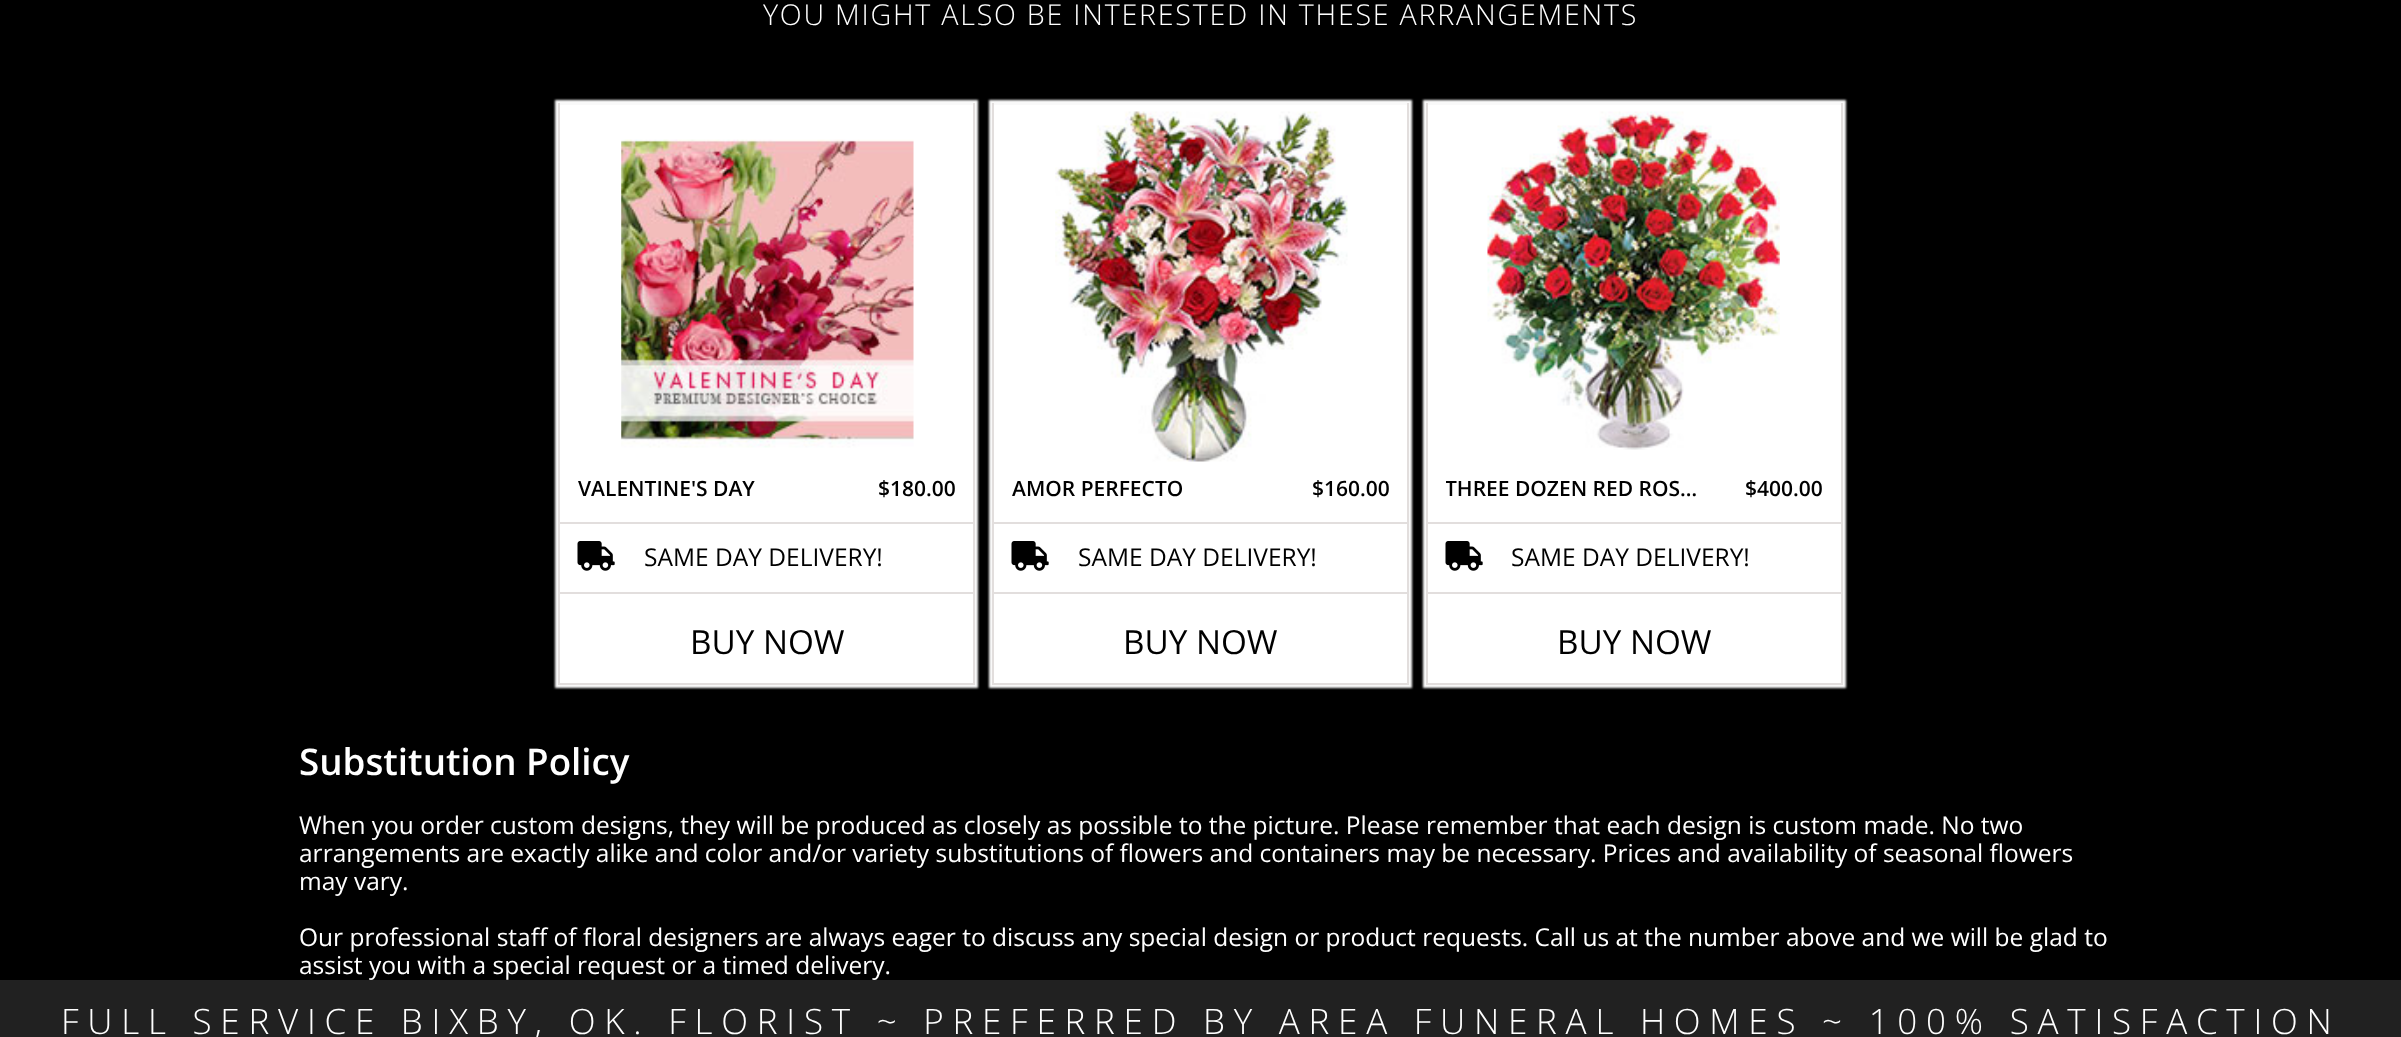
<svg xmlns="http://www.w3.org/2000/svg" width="2401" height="1037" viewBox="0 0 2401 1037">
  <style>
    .t1 { font: 300 28.65px Open Sans; letter-spacing: 1.75px; fill: #fff; }
    .t2 { font: 600 21px Open Sans; fill: #000; }
    .t3 { font: 24.5px Open Sans; fill: #000; }
    .t4 { font: 33.25px Open Sans; fill: #000; }
    .t5 { font: 600 36.75px Open Sans; fill: #fff; }
    .t6 { font: 24.5px Open Sans; fill: #fff; }
    .t7 { font: 300 35px Open Sans; letter-spacing: 8.75px; fill: #fff; }
  </style>
  <defs>
    <clipPath id="clip1"><rect x="1446" y="474" width="252" height="30"/></clipPath>
  </defs>
  <rect width="100%" height="100%" fill="#000"/>
  <text x="763" y="25" class="t1">YOU MIGHT ALSO BE INTERESTED IN THESE ARRANGEMENTS</text>
  <rect x="555" y="100" width="423" height="588" fill="#f9f9f9" filter="blur(1px)"/>
  <rect x="560" y="105" width="413" height="578" fill="#fff"/>
  <rect x="973" y="103" width="2" height="581" fill="#e2dedd"/>
  <rect x="558" y="683" width="417" height="2" fill="#e2dedd"/>
  <rect x="558" y="103" width="2" height="581" fill="#e2dedd"/>
  <image x="621" y="139" width="293" height="309" href="images/1.png"/>
  <text x="578" y="496" class="t2">VALENTINE'S DAY</text>
  <text x="878" y="496" class="t2">$180.00</text>
  <rect x="560" y="522" width="413" height="2" fill="#e2dedd"/>
  <image x="577" y="541" width="38" height="30" href="images/2.png"/>
  <text x="644" y="566" class="t3">SAME DAY DELIVERY!</text>
  <rect x="560" y="592" width="413" height="2" fill="#e2dedd"/>
  <text x="690" y="654" class="t4">BUY NOW</text>
  <rect x="989" y="100" width="423" height="588" fill="#f9f9f9" filter="blur(1px)"/>
  <rect x="994" y="105" width="413" height="578" fill="#fff"/>
  <rect x="1407" y="103" width="2" height="581" fill="#e2dedd"/>
  <rect x="992" y="683" width="417" height="2" fill="#e2dedd"/>
  <rect x="992" y="103" width="2" height="581" fill="#e2dedd"/>
  <image x="1055" y="111" width="293" height="351" href="images/3.png"/>
  <text x="1012" y="496" class="t2">AMOR PERFECTO</text>
  <text x="1312" y="496" class="t2">$160.00</text>
  <rect x="994" y="522" width="413" height="2" fill="#e2dedd"/>
  <image x="1011" y="541" width="38" height="30" href="images/2.png"/>
  <text x="1078" y="566" class="t3">SAME DAY DELIVERY!</text>
  <rect x="994" y="592" width="413" height="2" fill="#e2dedd"/>
  <text x="1123" y="654" class="t4">BUY NOW</text>
  <rect x="1423" y="100" width="423" height="588" fill="#f9f9f9" filter="blur(1px)"/>
  <rect x="1428" y="105" width="413" height="578" fill="#fff"/>
  <rect x="1841" y="103" width="2" height="581" fill="#e2dedd"/>
  <rect x="1426" y="683" width="417" height="2" fill="#e2dedd"/>
  <rect x="1426" y="103" width="2" height="581" fill="#e2dedd"/>
  <image x="1487" y="111" width="293" height="339" href="images/4.png"/>
  <g clip-path="url(#clip1)">
    <text x="1445" y="496" class="t2">THREE DOZEN RED ROS…</text>
  </g>
  <text x="1745" y="496" class="t2">$400.00</text>
  <rect x="1428" y="522" width="413" height="2" fill="#e2dedd"/>
  <image x="1445" y="541" width="38" height="30" href="images/2.png"/>
  <text x="1511" y="566" class="t3">SAME DAY DELIVERY!</text>
  <rect x="1428" y="592" width="413" height="2" fill="#e2dedd"/>
  <text x="1557" y="654" class="t4">BUY NOW</text>
  <text x="299" y="775" class="t5">Substitution Policy</text>
  <text x="299" y="834" class="t6">When you order custom designs, they will be produced as closely as possible to the picture. Please remember that each design is custom made. No two</text>
  <text x="299" y="862" class="t6">arrangements are exactly alike and color and/or variety substitutions of flowers and containers may be necessary. Prices and availability of seasonal flowers</text>
  <text x="299" y="890" class="t6">may vary.</text>
  <text x="299" y="946" class="t6">Our professional staff of floral designers are always eager to discuss any special design or product requests. Call us at the number above and we will be glad to</text>
  <text x="299" y="974" class="t6">assist you with a special request or a timed delivery.</text>
  <rect x="0" y="980" width="2401" height="57" fill="#212121"/>
  <text x="61" y="1034" class="t7">FULL SERVICE BIXBY, OK. FLORIST ~ PREFERRED BY AREA FUNERAL HOMES ~ 100% SATISFACTION</text>
</svg>
